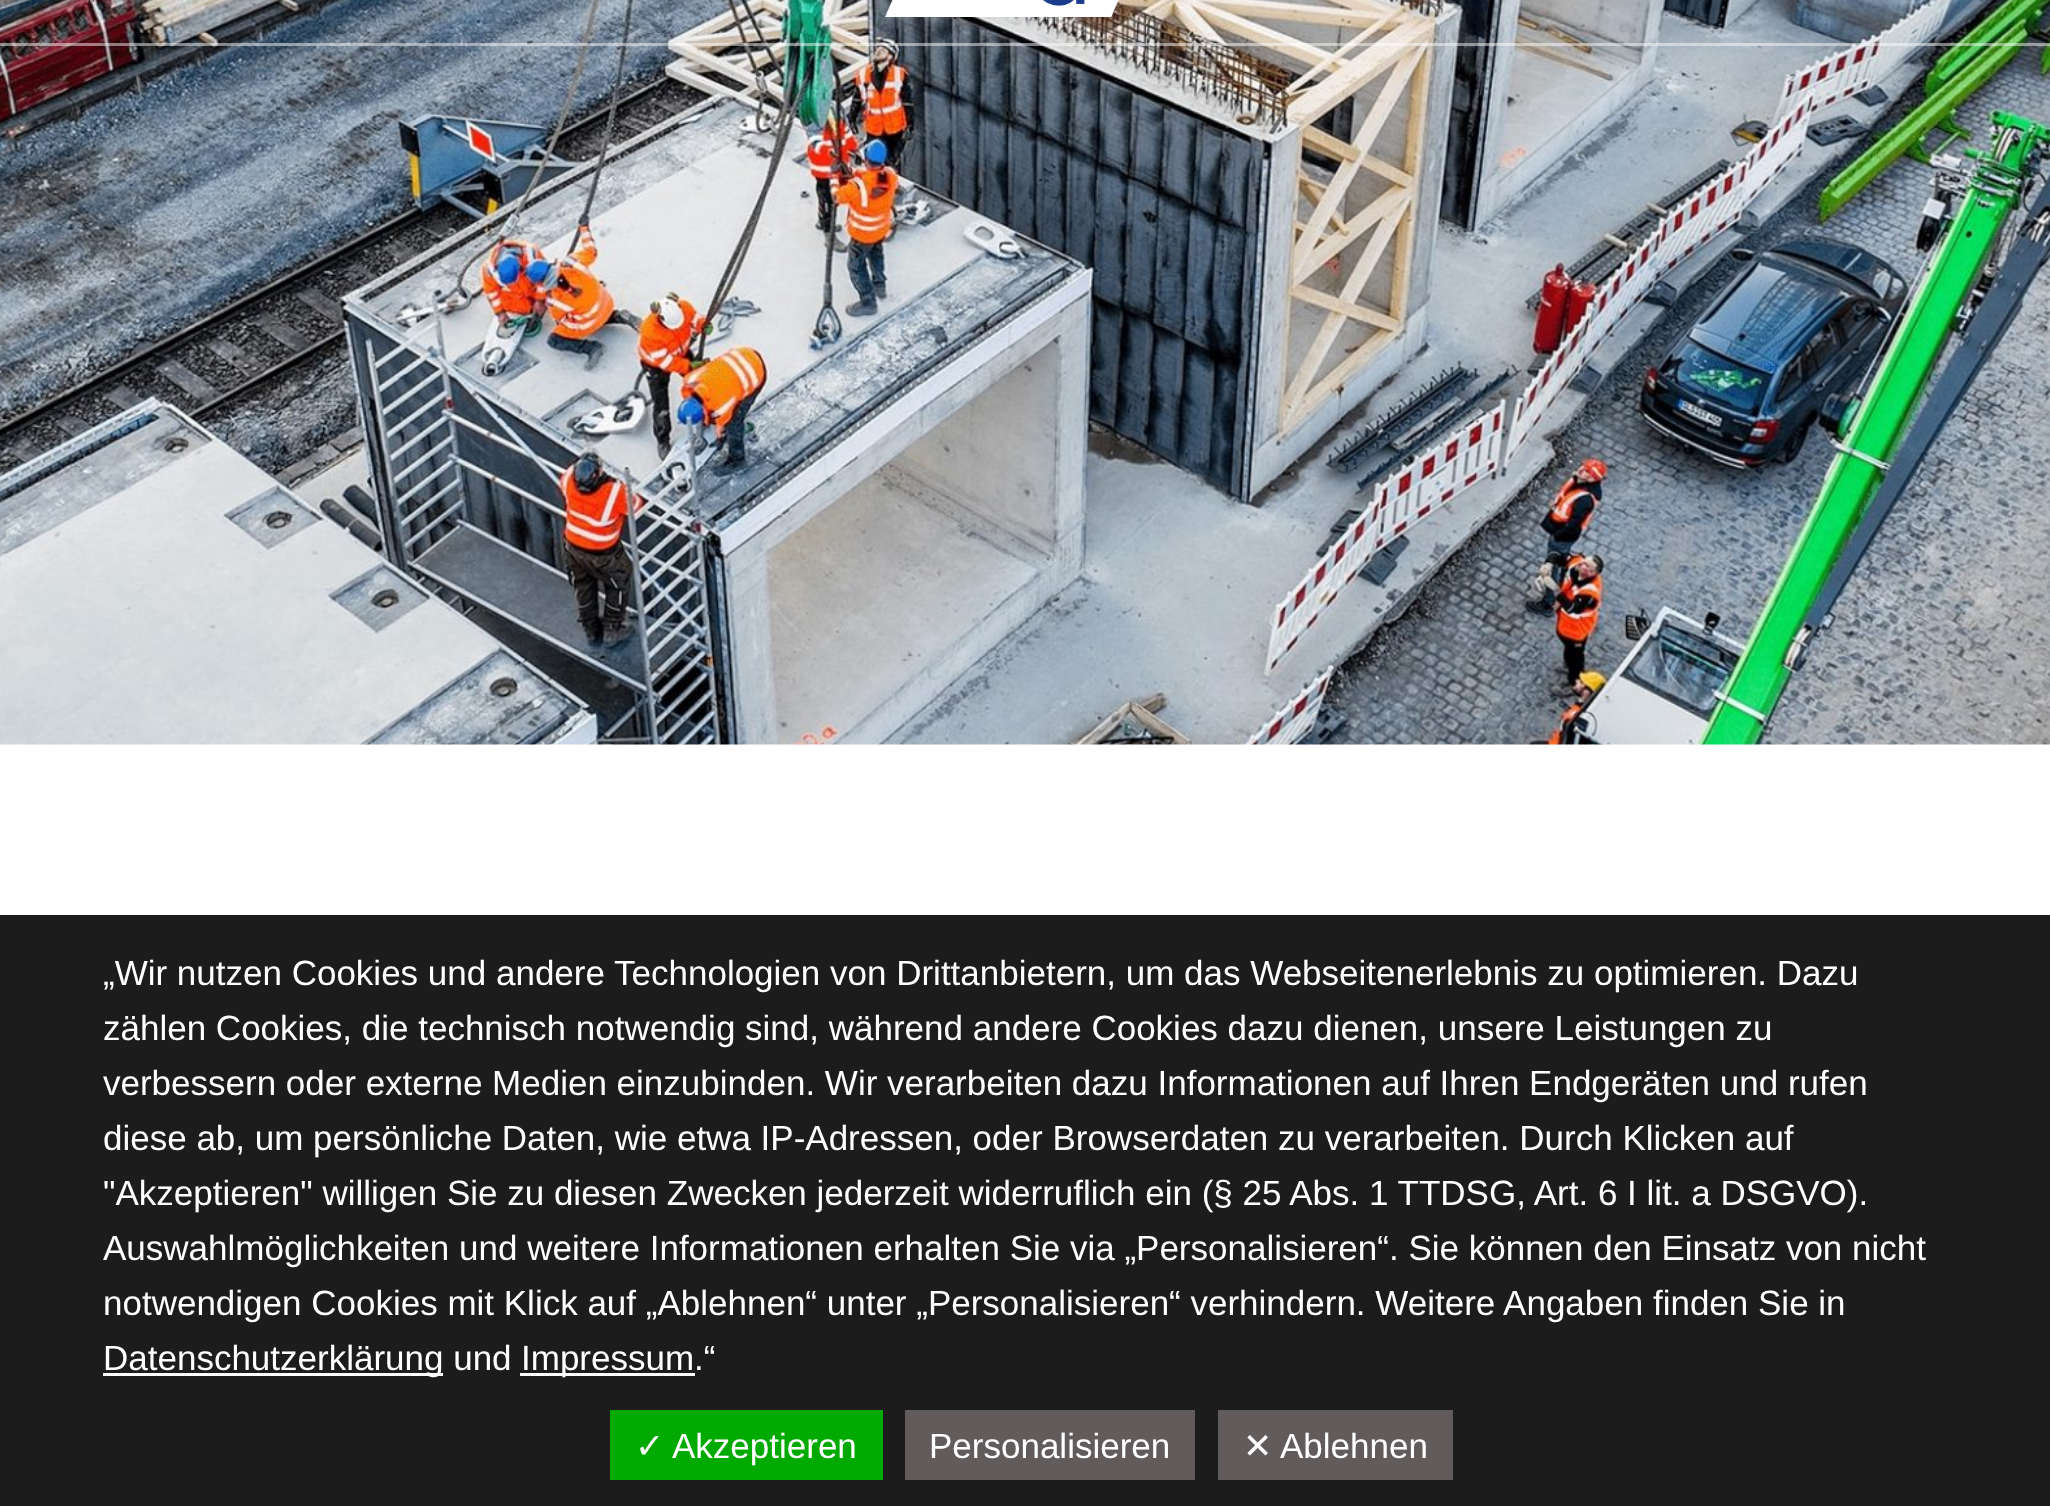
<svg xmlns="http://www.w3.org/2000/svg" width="2050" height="1506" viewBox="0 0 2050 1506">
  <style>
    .t1 { font: 35px Liberation Sans; fill: #fff; }
    .t2 { font: 35px DejaVu Sans; fill: #fff; }
  </style>
  <rect width="100%" height="100%" fill="#fff"/>
  <image x="0" y="0" width="2050" height="745" href="images/1.png"/>
  <rect x="0" y="43" width="2050" height="3" fill="#ffffff7a"/>
  <image x="885" y="0" width="234" height="17" href="images/2.png"/>
  <rect x="0" y="915" width="2050" height="591" fill="#1d1c1c"/>
  <text x="103" y="985" class="t1">„Wir nutzen Cookies und andere Technologien von Drittanbietern, um das Webseitenerlebnis zu optimieren. Dazu</text>
  <text x="103" y="1040" class="t1">zählen Cookies, die technisch notwendig sind, während andere Cookies dazu dienen, unsere Leistungen zu</text>
  <text x="103" y="1095" class="t1">verbessern oder externe Medien einzubinden. Wir verarbeiten dazu Informationen auf Ihren Endgeräten und rufen</text>
  <text x="103" y="1150" class="t1">diese ab, um persönliche Daten, wie etwa IP-Adressen, oder Browserdaten zu verarbeiten. Durch Klicken auf</text>
  <text x="103" y="1205" class="t1">"Akzeptieren" willigen Sie zu diesen Zwecken jederzeit widerruflich ein (§ 25 Abs. 1 TTDSG, Art. 6 I lit. a DSGVO).</text>
  <text x="103" y="1260" class="t1">Auswahlmöglichkeiten und weitere Informationen erhalten Sie via „Personalisieren“. Sie können den Einsatz von nicht</text>
  <text x="103" y="1315" class="t1">notwendigen Cookies mit Klick auf „Ablehnen“ unter „Personalisieren“ verhindern. Weitere Angaben finden Sie in</text>
  <rect x="103" y="1373" width="340" height="3" fill="#fff"/>
  <text x="103" y="1370" class="t1">Datenschutzerklärung und</text>
  <rect x="520" y="1373" width="175" height="3" fill="#fff"/>
  <text x="521" y="1370" class="t1">Impressum.“</text>
  <rect x="610" y="1410" width="273" height="70" fill="#0a0"/>
  <text x="635" y="1458" class="t2">✓</text>
  <text x="672" y="1458" class="t1">Akzeptieren</text>
  <rect x="905" y="1410" width="290" height="70" fill="#615b5b"/>
  <text x="929" y="1458" class="t1">Personalisieren</text>
  <rect x="1218" y="1410" width="235" height="70" fill="#615b5b"/>
  <text x="1243" y="1458" class="t2">✕</text>
  <text x="1280" y="1458" class="t1">Ablehnen</text>
</svg>
